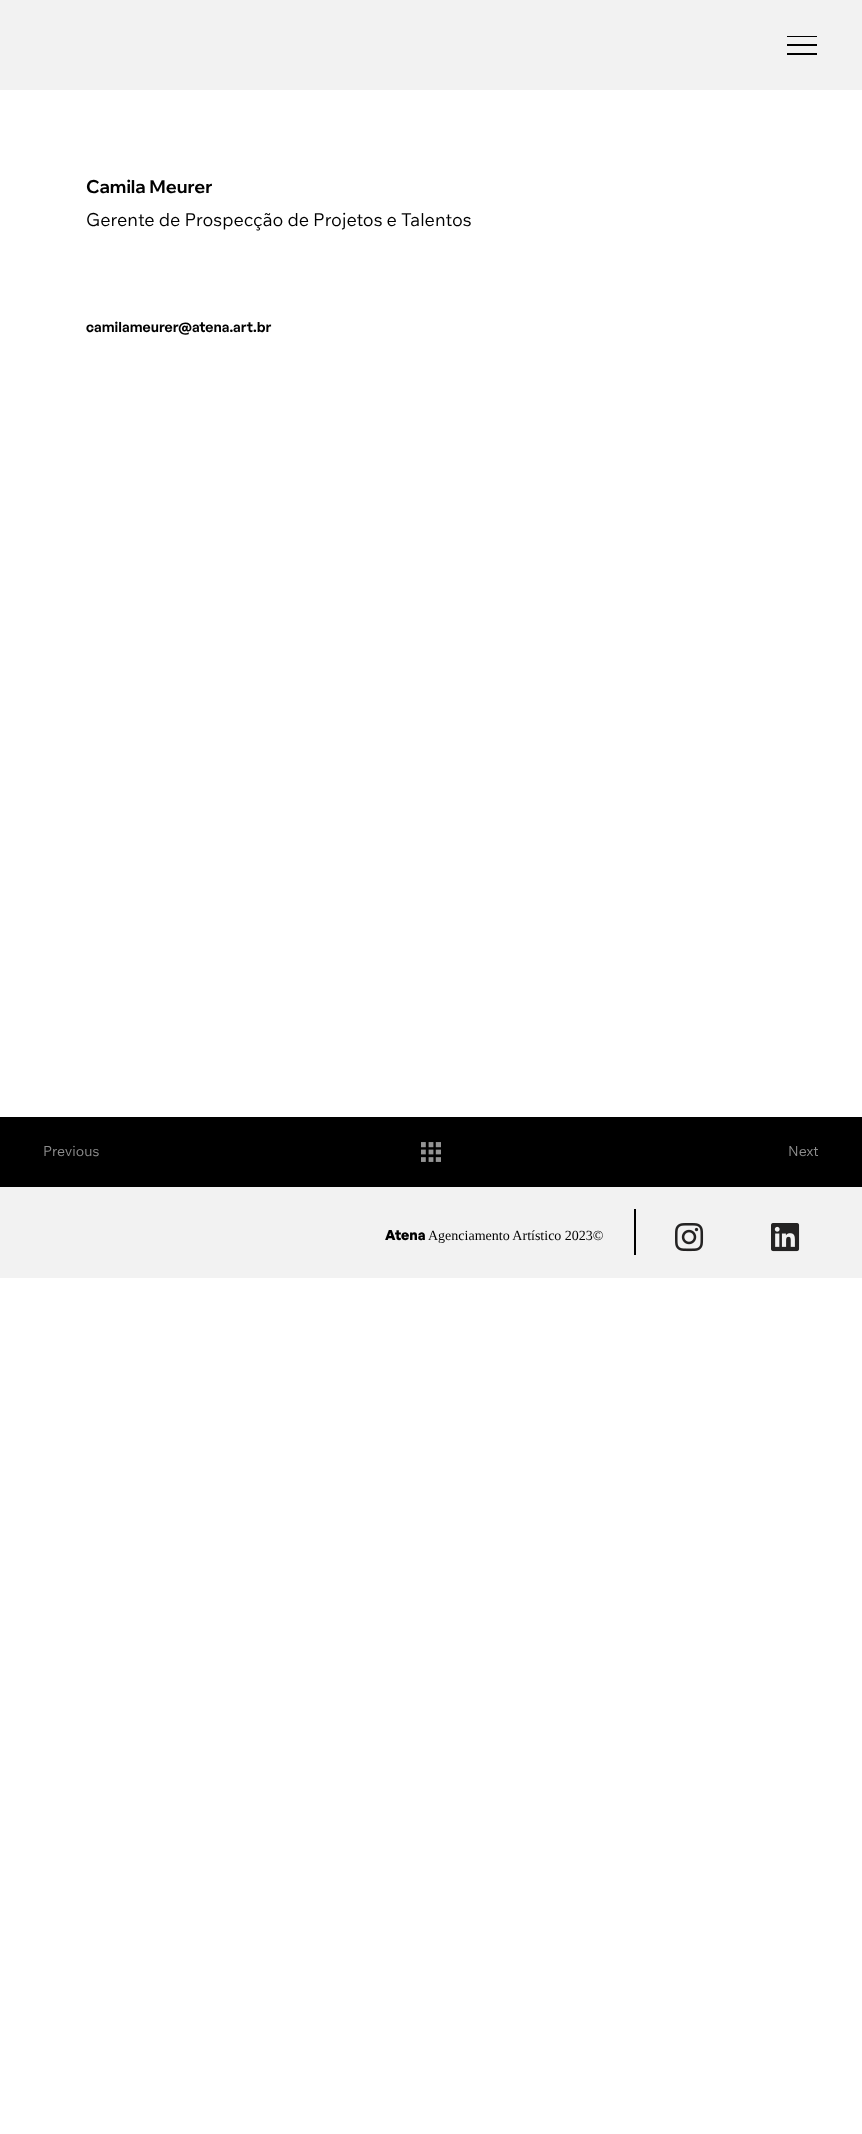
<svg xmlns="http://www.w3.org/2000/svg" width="862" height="2134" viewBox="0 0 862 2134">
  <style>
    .t1 { font: bold 18px Wix Madefor Display; fill: #000; }
    .t2 { font: 18px Wix Madefor Text; fill: #000; }
    .t3 { font: 600 14px General Sans; fill: #000; }
    .t4 { font: 14px Wix Madefor Text; fill: #8d8d8d; }
    .t5 { font: bold 14px General Sans; fill: #000; }
    .t6 { font: 14px Liberation Serif; fill: #000; }
  </style>
  <rect width="100%" height="100%" fill="#fff"/>
  <rect x="0" y="0" width="862" height="90" fill="#f2f2f2"/>
  <rect x="787" y="36" width="30" height="1" fill="#000"/>
  <rect x="787" y="44" width="30" height="2" fill="#000"/>
  <rect x="787" y="53" width="30" height="2" fill="#000"/>
  <text x="86" y="193" class="t1">Camila Meurer</text>
  <text x="86" y="226" class="t2">Gerente de Prospecção de Projetos e Talentos</text>
  <text x="86" y="332" class="t3">camilameurer@atena.art.br</text>
  <rect x="0" y="1117" width="862" height="70" fill="#000"/>
  <text x="43" y="1156" class="t4">Previous</text>
  <image x="421" y="1142" width="20" height="20" href="images/1.png"/>
  <text x="788" y="1156" class="t4">Next</text>
  <rect x="0" y="1187" width="862" height="91" fill="#f2f2f2"/>
  <text x="385" y="1240" class="t5">Atena</text>
  <text x="428" y="1240" class="t6">Agenciamento Artístico 2023©</text>
  <rect x="634" y="1209" width="2" height="46" fill="#000"/>
  <image x="675" y="1223" width="29" height="29" href="images/2.png"/>
  <image x="771" y="1223" width="29" height="29" href="images/3.png"/>
</svg>
